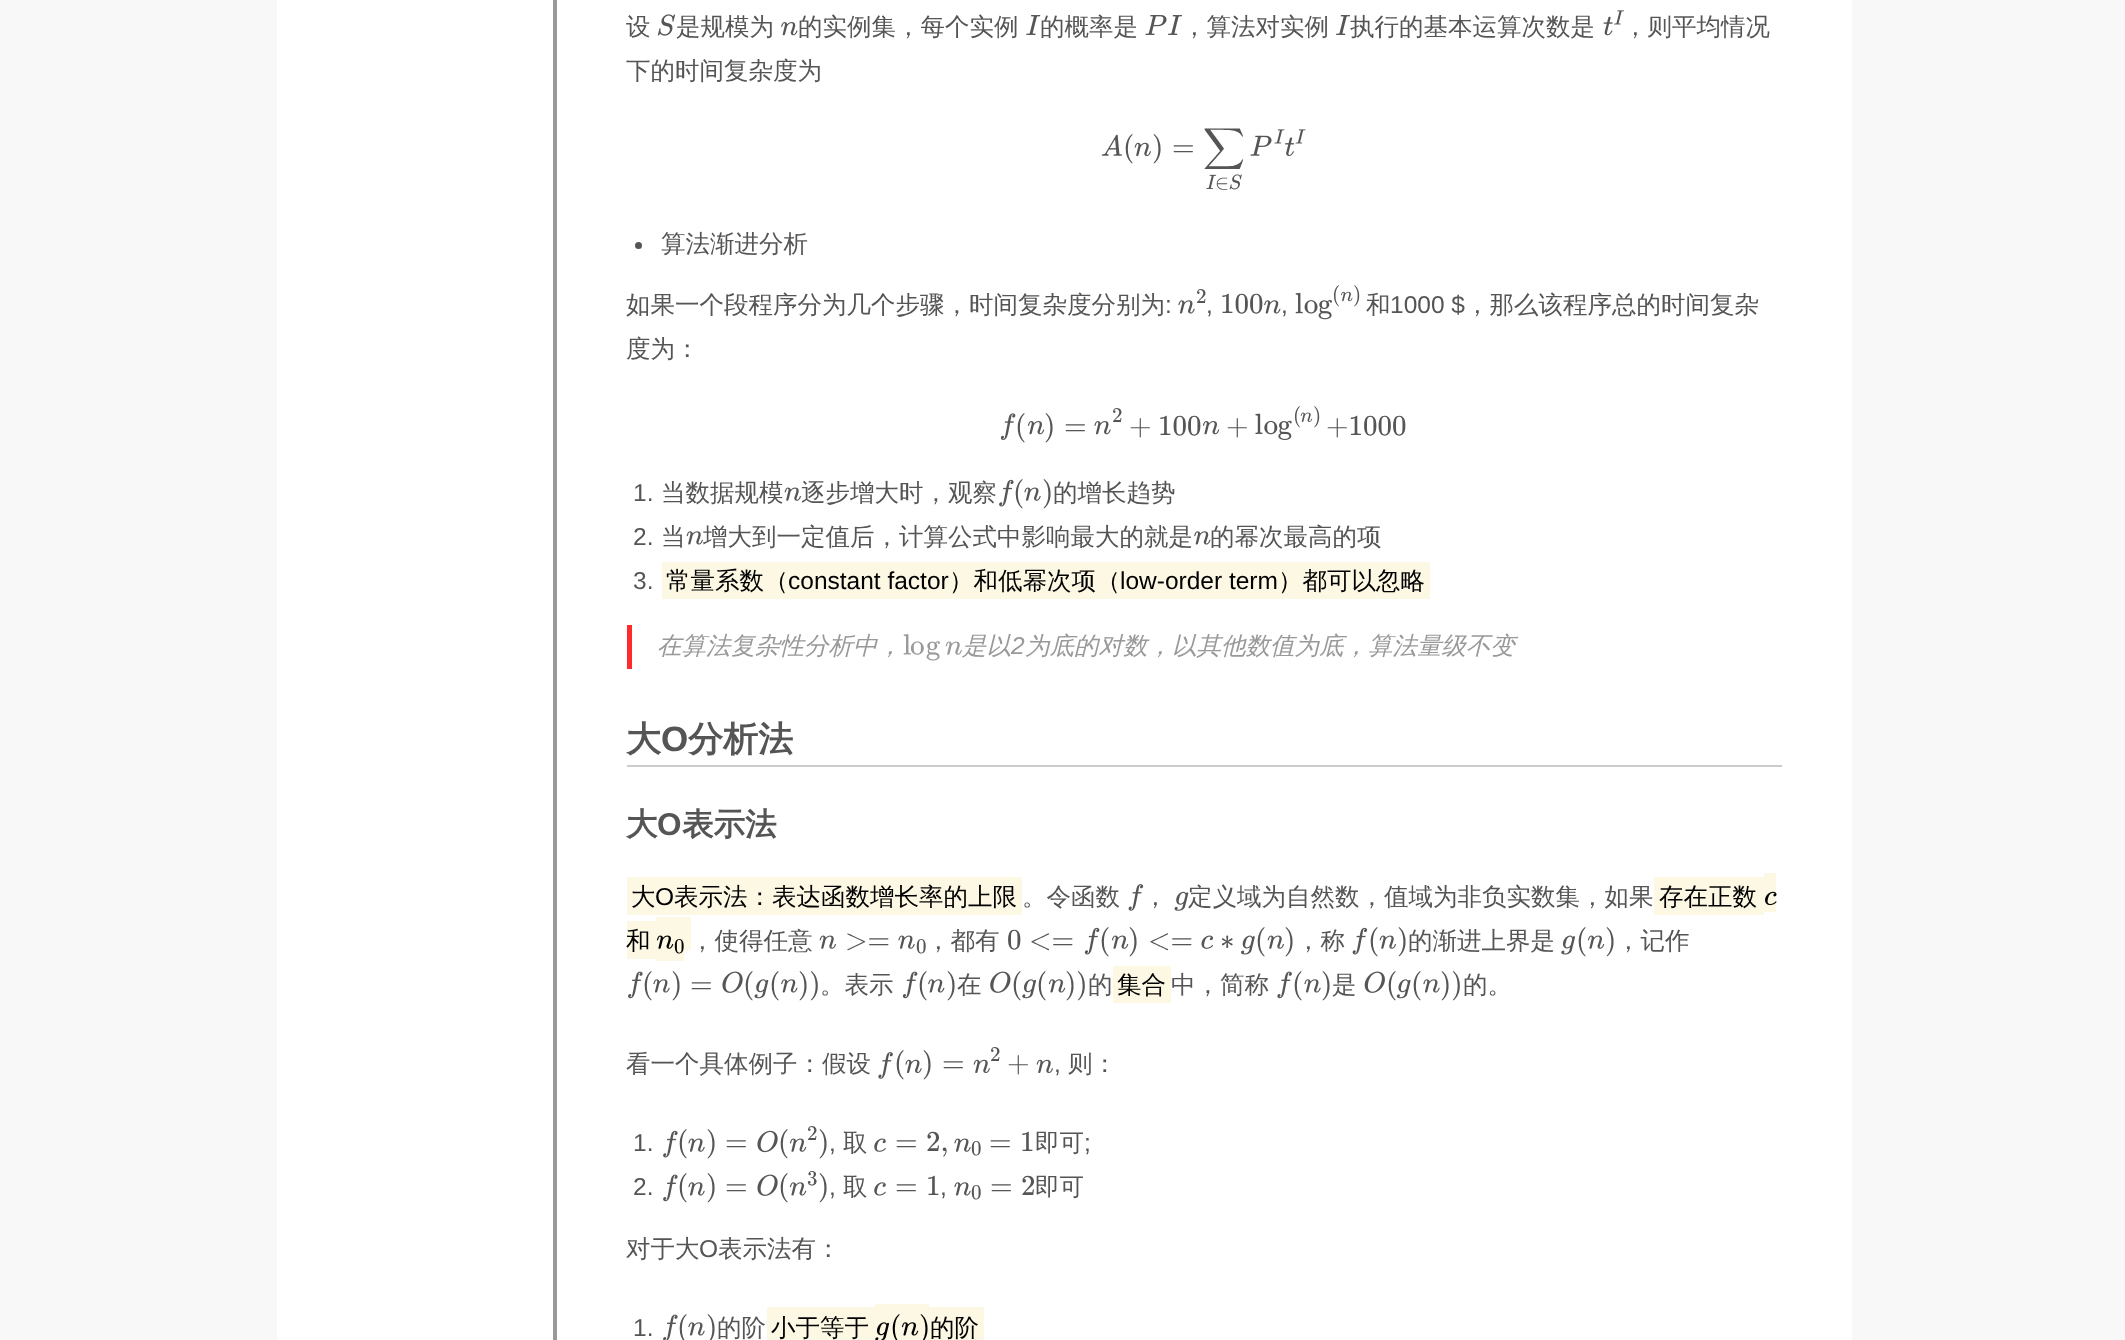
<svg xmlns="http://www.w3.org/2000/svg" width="2125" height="1340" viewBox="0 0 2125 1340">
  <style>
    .t1 { font: 500 24.5px WenQuanYi Zen Hei; fill: #555; }
    .t2 { font: 29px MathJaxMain; fill: #555; }
    .t3 { font: 29px 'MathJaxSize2'; fill: #555; }
    .t4 { font: 21px MathJaxMain; fill: #555; }
    .t5 { font: 24.5px Liberation Sans; fill: #555; }
    .t6 { font: 500 24.5px WenQuanYi Zen Hei; fill: #000; }
    .t7 { font: 24.5px Liberation Sans; fill: #000; }
    .t8 { font: italic 500 24.5px WenQuanYi Zen Hei; fill: #999; }
    .t9 { font: italic 24.5px Liberation Sans; fill: #999; }
    .t10 { font: bold 35px WenQuanYi Zen Hei; fill: #555; }
    .t11 { font: bold 35px Liberation Sans; fill: #555; }
    .t12 { font: bold 31.5px WenQuanYi Zen Hei; fill: #555; }
    .t13 { font: bold 31.5px Liberation Sans; fill: #555; }
    .t14 { font: 21px MathJaxMain; fill: #000; }
    .t15 { font: 29px MathJaxMain; fill: #000; }
  </style>
  <rect width="100%" height="100%" fill="#f8f8f8"/>
  <rect x="277" y="0" width="1575" height="1340" fill="#fff"/>
  <rect x="553" y="0" width="4" height="1340" fill="#999"/>
  <text x="626" y="35" class="t1">设</text>
  <image x="657" y="14" width="19" height="22" href="images/1.png"/>
  <text x="676" y="35" class="t1">是规模为</text>
  <image x="781" y="22" width="17" height="14" href="images/2.png"/>
  <text x="798" y="35" class="t1">的实例集，每个实例</text>
  <image x="1026" y="15" width="15" height="20" href="images/3.png"/>
  <text x="1040" y="35" class="t1">的概率是</text>
  <image x="1145" y="15" width="22" height="20" href="images/4.png"/>
  <image x="1168" y="15" width="14" height="20" href="images/5.png"/>
  <text x="1182" y="35" class="t1">，算法对实例</text>
  <image x="1336" y="15" width="14" height="20" href="images/5.png"/>
  <text x="1350" y="35" class="t1">执行的基本运算次数是</text>
  <image x="1603" y="16" width="10" height="20" href="images/6.png"/>
  <image x="1614" y="10" width="10" height="15" href="images/7.png"/>
  <text x="1623" y="35" class="t1">，则平均情况</text>
  <text x="626" y="79" class="t1">下的时间复杂度为</text>
  <image x="1101" y="134" width="21" height="22" href="images/8.png"/>
  <text x="1123" y="156" class="t2">(</text>
  <image x="1134" y="142" width="17" height="14" href="images/9.png"/>
  <text x="1152" y="156" class="t2">)</text>
  <text x="1172" y="156" class="t2">=</text>
  <text x="1203" y="156" class="t3">∑</text>
  <image x="1206" y="174" width="11" height="15" href="images/10.png"/>
  <text x="1215" y="189" class="t4">∈</text>
  <image x="1229" y="174" width="13" height="16" href="images/11.png"/>
  <image x="1250" y="135" width="22" height="21" href="images/12.png"/>
  <image x="1274" y="129" width="11" height="15" href="images/13.png"/>
  <image x="1285" y="137" width="10" height="19" href="images/14.png"/>
  <image x="1295" y="129" width="11" height="15" href="images/13.png"/>
  <circle cx="638.5" cy="245.5" r="3.5" fill="#555"/>
  <text x="661" y="252" class="t1">算法渐进分析</text>
  <text x="626" y="313" class="t1">如果一个段程序分为几个步骤，时间复杂度分别为</text>
  <text x="1165" y="313" class="t5">:</text>
  <text x="1196" y="303" class="t4">2</text>
  <image x="1178" y="300" width="17" height="14" href="images/15.png"/>
  <text x="1206" y="313" class="t5">,</text>
  <text x="1220" y="313" class="t2">100</text>
  <image x="1264" y="300" width="17" height="14" href="images/16.png"/>
  <text x="1281" y="313" class="t5">,</text>
  <image x="1295" y="292" width="8" height="22" href="images/17.png"/>
  <image x="1304" y="300" width="14" height="14" href="images/18.png"/>
  <image x="1318" y="300" width="14" height="20" href="images/19.png"/>
  <text x="1332" y="301" class="t4">(</text>
  <image x="1341" y="291" width="12" height="11" href="images/20.png"/>
  <text x="1353" y="301" class="t4">)</text>
  <text x="1366" y="313" class="t1">和</text>
  <text x="1390" y="313" class="t5">1000 $</text>
  <text x="1465" y="313" class="t1">，那么该程序总的时间复杂</text>
  <text x="626" y="357" class="t1">度为：</text>
  <image x="1000" y="413" width="16" height="27" href="images/21.png"/>
  <text x="1015" y="435" class="t2">(</text>
  <image x="1027" y="421" width="18" height="14" href="images/22.png"/>
  <text x="1044" y="435" class="t2">)</text>
  <text x="1064" y="435" class="t2">=</text>
  <text x="1112" y="422" class="t4">2</text>
  <image x="1094" y="421" width="17" height="14" href="images/23.png"/>
  <text x="1129" y="435" class="t2">+</text>
  <text x="1158" y="435" class="t2">100</text>
  <image x="1202" y="421" width="18" height="14" href="images/22.png"/>
  <text x="1226" y="435" class="t2">+</text>
  <image x="1255" y="413" width="8" height="21" href="images/24.png"/>
  <image x="1264" y="420" width="14" height="15" href="images/25.png"/>
  <image x="1278" y="420" width="14" height="20" href="images/26.png"/>
  <text x="1293" y="422" class="t4">(</text>
  <image x="1300" y="412" width="13" height="10" href="images/27.png"/>
  <text x="1313" y="422" class="t4">)</text>
  <text x="1326" y="435" class="t2">+1000</text>
  <text x="633" y="501" class="t5">1.</text>
  <text x="661" y="501" class="t1">当数据规模</text>
  <image x="784" y="487" width="17" height="14" href="images/28.png"/>
  <text x="801" y="501" class="t1">逐步增大时，观察</text>
  <image x="999" y="479" width="15" height="28" href="images/29.png"/>
  <text x="1013" y="501" class="t2">(</text>
  <image x="1024" y="487" width="17" height="14" href="images/30.png"/>
  <text x="1042" y="501" class="t2">)</text>
  <text x="1053" y="501" class="t1">的增长趋势</text>
  <text x="633" y="545" class="t5">2.</text>
  <text x="661" y="545" class="t1">当</text>
  <text x="703" y="545" class="t1">增大到一定值后，计算公式中影响最大的就是</text>
  <image x="686" y="531" width="17" height="14" href="images/31.png"/>
  <image x="1194" y="531" width="17" height="14" href="images/16.png"/>
  <text x="1210" y="545" class="t1">的幂次最高的项</text>
  <text x="633" y="589" class="t5">3.</text>
  <rect x="662" y="562" width="768" height="37" fill="#fcf8e3"/>
  <text x="666" y="589" class="t6">常量系数（</text>
  <text x="788" y="589" class="t7">constant factor</text>
  <text x="949" y="589" class="t6">）和低幂次项（</text>
  <text x="1120" y="589" class="t7">low-order term</text>
  <text x="1278" y="589" class="t6">）都可以忽略</text>
  <rect x="627" y="625" width="5" height="44" fill="#ff2a2a"/>
  <text x="657" y="654" class="t8">在算法复杂性分析中，</text>
  <image x="903" y="634" width="8" height="21" href="images/32.png"/>
  <image x="910" y="641" width="14" height="14" href="images/33.png"/>
  <image x="926" y="641" width="14" height="20" href="images/34.png"/>
  <text x="962" y="654" class="t8">是以</text>
  <image x="945" y="641" width="17" height="14" href="images/35.png"/>
  <text x="1011" y="654" class="t9">2</text>
  <text x="1025" y="654" class="t8">为底的对数，以其他数值为底，算法量级不变</text>
  <rect x="627" y="765" width="1155" height="2" fill="#ccc"/>
  <text x="626" y="751" class="t10">大</text>
  <text x="661" y="751" class="t11">O</text>
  <text x="688" y="751" class="t10">分析法</text>
  <text x="626" y="835" class="t12">大</text>
  <text x="657" y="835" class="t13">O</text>
  <text x="682" y="835" class="t12">表示法</text>
  <rect x="627" y="877" width="395" height="38" fill="#fcf8e3"/>
  <text x="631" y="905" class="t6">大</text>
  <text x="674" y="905" class="t6">表示法：表达函数增长率的上限</text>
  <image x="1128" y="884" width="16" height="27" href="images/36.png"/>
  <text x="1188" y="905" class="t1">定义域为自然数，值域为非负实数集，如果</text>
  <rect x="1654" y="877" width="110" height="38" fill="#fcf8e3"/>
  <rect x="1764" y="873" width="12" height="39" fill="#fcf8e3"/>
  <rect x="627" y="921" width="29" height="38" fill="#fcf8e3"/>
  <rect x="656" y="950" width="28" height="11" fill="#fcf8e3"/>
  <rect x="656" y="917" width="35" height="33" fill="#fcf8e3"/>
  <text x="1659" y="905" class="t6">存在正数</text>
  <image x="1765" y="891" width="12" height="15" href="images/37.png"/>
  <text x="626" y="949" class="t6">和</text>
  <image x="656" y="935" width="18" height="14" href="images/38.png"/>
  <text x="674" y="953" class="t14">0</text>
  <text x="655" y="905" class="t7">O</text>
  <text x="1022" y="905" class="t1">。令函数</text>
  <text x="1143" y="905" class="t1">，</text>
  <image x="1174" y="891" width="15" height="20" href="images/39.png"/>
  <text x="690" y="949" class="t1">，使得任意</text>
  <image x="819" y="935" width="17" height="14" href="images/28.png"/>
  <text x="845" y="949" class="t2">&gt;=</text>
  <image x="898" y="935" width="17" height="14" href="images/30.png"/>
  <text x="916" y="953" class="t4">0</text>
  <text x="926" y="949" class="t1">，都有</text>
  <text x="1007" y="949" class="t2">0</text>
  <text x="1029" y="949" class="t2">&lt;=</text>
  <image x="1084" y="927" width="16" height="28" href="images/40.png"/>
  <text x="1099" y="949" class="t2">(</text>
  <image x="1111" y="935" width="18" height="14" href="images/41.png"/>
  <text x="1128" y="949" class="t2">)</text>
  <text x="1148" y="949" class="t2">&lt;=</text>
  <image x="1201" y="935" width="12" height="14" href="images/42.png"/>
  <text x="1220" y="949" class="t2">∗</text>
  <image x="1241" y="935" width="14" height="20" href="images/43.png"/>
  <text x="1255" y="949" class="t2">(</text>
  <image x="1267" y="935" width="17" height="14" href="images/28.png"/>
  <text x="1284" y="949" class="t2">)</text>
  <text x="1296" y="949" class="t1">，称</text>
  <image x="1352" y="927" width="16" height="28" href="images/44.png"/>
  <text x="1368" y="949" class="t2">(</text>
  <image x="1379" y="935" width="17" height="14" href="images/28.png"/>
  <text x="1397" y="949" class="t2">)</text>
  <text x="1408" y="949" class="t1">的渐进上界是</text>
  <image x="1561" y="935" width="14" height="20" href="images/45.png"/>
  <text x="1576" y="949" class="t2">(</text>
  <image x="1587" y="935" width="18" height="14" href="images/41.png"/>
  <text x="1605" y="949" class="t2">)</text>
  <text x="1616" y="949" class="t1">，记作</text>
  <image x="628" y="971" width="15" height="28" href="images/46.png"/>
  <text x="642" y="993" class="t2">(</text>
  <image x="653" y="979" width="17" height="14" href="images/15.png"/>
  <text x="671" y="993" class="t2">)</text>
  <text x="690" y="993" class="t2">=</text>
  <image x="722" y="971" width="21" height="22" href="images/47.png"/>
  <text x="743" y="993" class="t2">(</text>
  <image x="754" y="979" width="15" height="20" href="images/48.png"/>
  <text x="769" y="993" class="t2">(</text>
  <image x="781" y="979" width="17" height="14" href="images/16.png"/>
  <text x="798" y="993" class="t2">))</text>
  <text x="820" y="993" class="t1">。表示</text>
  <image x="902" y="971" width="16" height="28" href="images/49.png"/>
  <text x="917" y="993" class="t2">(</text>
  <image x="928" y="979" width="17" height="14" href="images/16.png"/>
  <text x="946" y="993" class="t2">)</text>
  <text x="957" y="993" class="t1">在</text>
  <image x="990" y="971" width="21" height="22" href="images/50.png"/>
  <text x="1011" y="993" class="t2">(</text>
  <image x="1022" y="979" width="14" height="20" href="images/51.png"/>
  <text x="1036" y="993" class="t2">(</text>
  <image x="1048" y="979" width="18" height="14" href="images/52.png"/>
  <text x="1065" y="993" class="t2">))</text>
  <text x="1088" y="993" class="t1">的</text>
  <rect x="1113" y="966" width="58" height="37" fill="#fcf8e3"/>
  <text x="1117" y="993" class="t6">集合</text>
  <text x="1171" y="993" class="t1">中，简称</text>
  <image x="1277" y="971" width="15" height="28" href="images/53.png"/>
  <text x="1292" y="993" class="t2">(</text>
  <image x="1304" y="979" width="17" height="14" href="images/15.png"/>
  <text x="1321" y="993" class="t2">)</text>
  <text x="1332" y="993" class="t1">是</text>
  <image x="1364" y="971" width="21" height="22" href="images/54.png"/>
  <text x="1386" y="993" class="t2">(</text>
  <image x="1396" y="979" width="15" height="20" href="images/55.png"/>
  <text x="1411" y="993" class="t2">(</text>
  <image x="1423" y="979" width="17" height="14" href="images/15.png"/>
  <text x="1440" y="993" class="t2">))</text>
  <text x="1463" y="993" class="t1">的。</text>
  <text x="626" y="1072" class="t1">看一个具体例子：假设</text>
  <image x="878" y="1052" width="15" height="27" href="images/56.png"/>
  <text x="894" y="1072" class="t2">(</text>
  <image x="905" y="1059" width="17" height="14" href="images/57.png"/>
  <text x="922" y="1072" class="t2">)</text>
  <text x="942" y="1072" class="t2">=</text>
  <text x="990" y="1061" class="t4">2</text>
  <image x="973" y="1059" width="17" height="14" href="images/9.png"/>
  <text x="1007" y="1072" class="t2">+</text>
  <image x="1036" y="1059" width="17" height="14" href="images/9.png"/>
  <text x="1054" y="1072" class="t5">,</text>
  <text x="1068" y="1072" class="t1">则：</text>
  <text x="633" y="1151" class="t5">1.</text>
  <image x="663" y="1130" width="15" height="28" href="images/29.png"/>
  <text x="677" y="1151" class="t2">(</text>
  <image x="688" y="1138" width="17" height="14" href="images/30.png"/>
  <text x="706" y="1151" class="t2">)</text>
  <text x="725" y="1151" class="t2">=</text>
  <image x="757" y="1130" width="21" height="23" href="images/58.png"/>
  <text x="778" y="1151" class="t2">(</text>
  <text x="807" y="1140" class="t4">2</text>
  <image x="789" y="1138" width="18" height="14" href="images/41.png"/>
  <text x="818" y="1151" class="t2">)</text>
  <text x="829" y="1151" class="t5">,</text>
  <text x="843" y="1151" class="t1">取</text>
  <image x="874" y="1138" width="12" height="14" href="images/59.png"/>
  <text x="895" y="1151" class="t2">=</text>
  <text x="926" y="1151" class="t2">2,</text>
  <image x="954" y="1138" width="17" height="14" href="images/30.png"/>
  <text x="971" y="1155" class="t4">0</text>
  <text x="989" y="1151" class="t2">=</text>
  <text x="1020" y="1151" class="t2">1</text>
  <text x="1035" y="1151" class="t1">即可</text>
  <text x="1084" y="1151" class="t5">;</text>
  <text x="633" y="1195" class="t5">2.</text>
  <image x="663" y="1174" width="15" height="28" href="images/46.png"/>
  <text x="677" y="1195" class="t2">(</text>
  <image x="688" y="1182" width="17" height="14" href="images/15.png"/>
  <text x="706" y="1195" class="t2">)</text>
  <text x="725" y="1195" class="t2">=</text>
  <image x="757" y="1174" width="21" height="22" href="images/47.png"/>
  <text x="778" y="1195" class="t2">(</text>
  <text x="807" y="1185" class="t4">3</text>
  <image x="789" y="1182" width="18" height="14" href="images/52.png"/>
  <text x="818" y="1195" class="t2">)</text>
  <text x="829" y="1195" class="t5">,</text>
  <text x="843" y="1195" class="t1">取</text>
  <image x="874" y="1182" width="12" height="14" href="images/60.png"/>
  <text x="895" y="1195" class="t2">=</text>
  <text x="926" y="1195" class="t2">1</text>
  <text x="940" y="1195" class="t5">,</text>
  <image x="954" y="1182" width="17" height="14" href="images/15.png"/>
  <text x="971" y="1199" class="t4">0</text>
  <text x="990" y="1195" class="t2">=</text>
  <text x="1021" y="1195" class="t2">2</text>
  <text x="1035" y="1195" class="t1">即可</text>
  <text x="626" y="1257" class="t1">对于大</text>
  <text x="699" y="1257" class="t5">O</text>
  <text x="718" y="1257" class="t1">表示法有：</text>
  <text x="633" y="1336" class="t5">1.</text>
  <image x="663" y="1314" width="15" height="26" href="images/61.png"/>
  <text x="677" y="1336" class="t2">(</text>
  <image x="688" y="1322" width="17" height="14" href="images/15.png"/>
  <text x="706" y="1336" class="t2">)</text>
  <text x="717" y="1336" class="t1">的阶</text>
  <rect x="767" y="1307" width="108" height="33" fill="#fcf8e3"/>
  <rect x="875" y="1304" width="54" height="36" fill="#fcf8e3"/>
  <rect x="929" y="1307" width="55" height="33" fill="#fcf8e3"/>
  <text x="771" y="1336" class="t6">小于等于</text>
  <image x="875" y="1322" width="14" height="18" href="images/62.png"/>
  <text x="890" y="1336" class="t15">(</text>
  <image x="901" y="1322" width="18" height="14" href="images/63.png"/>
  <text x="919" y="1336" class="t15">)</text>
  <text x="930" y="1336" class="t6">的阶</text>
</svg>
